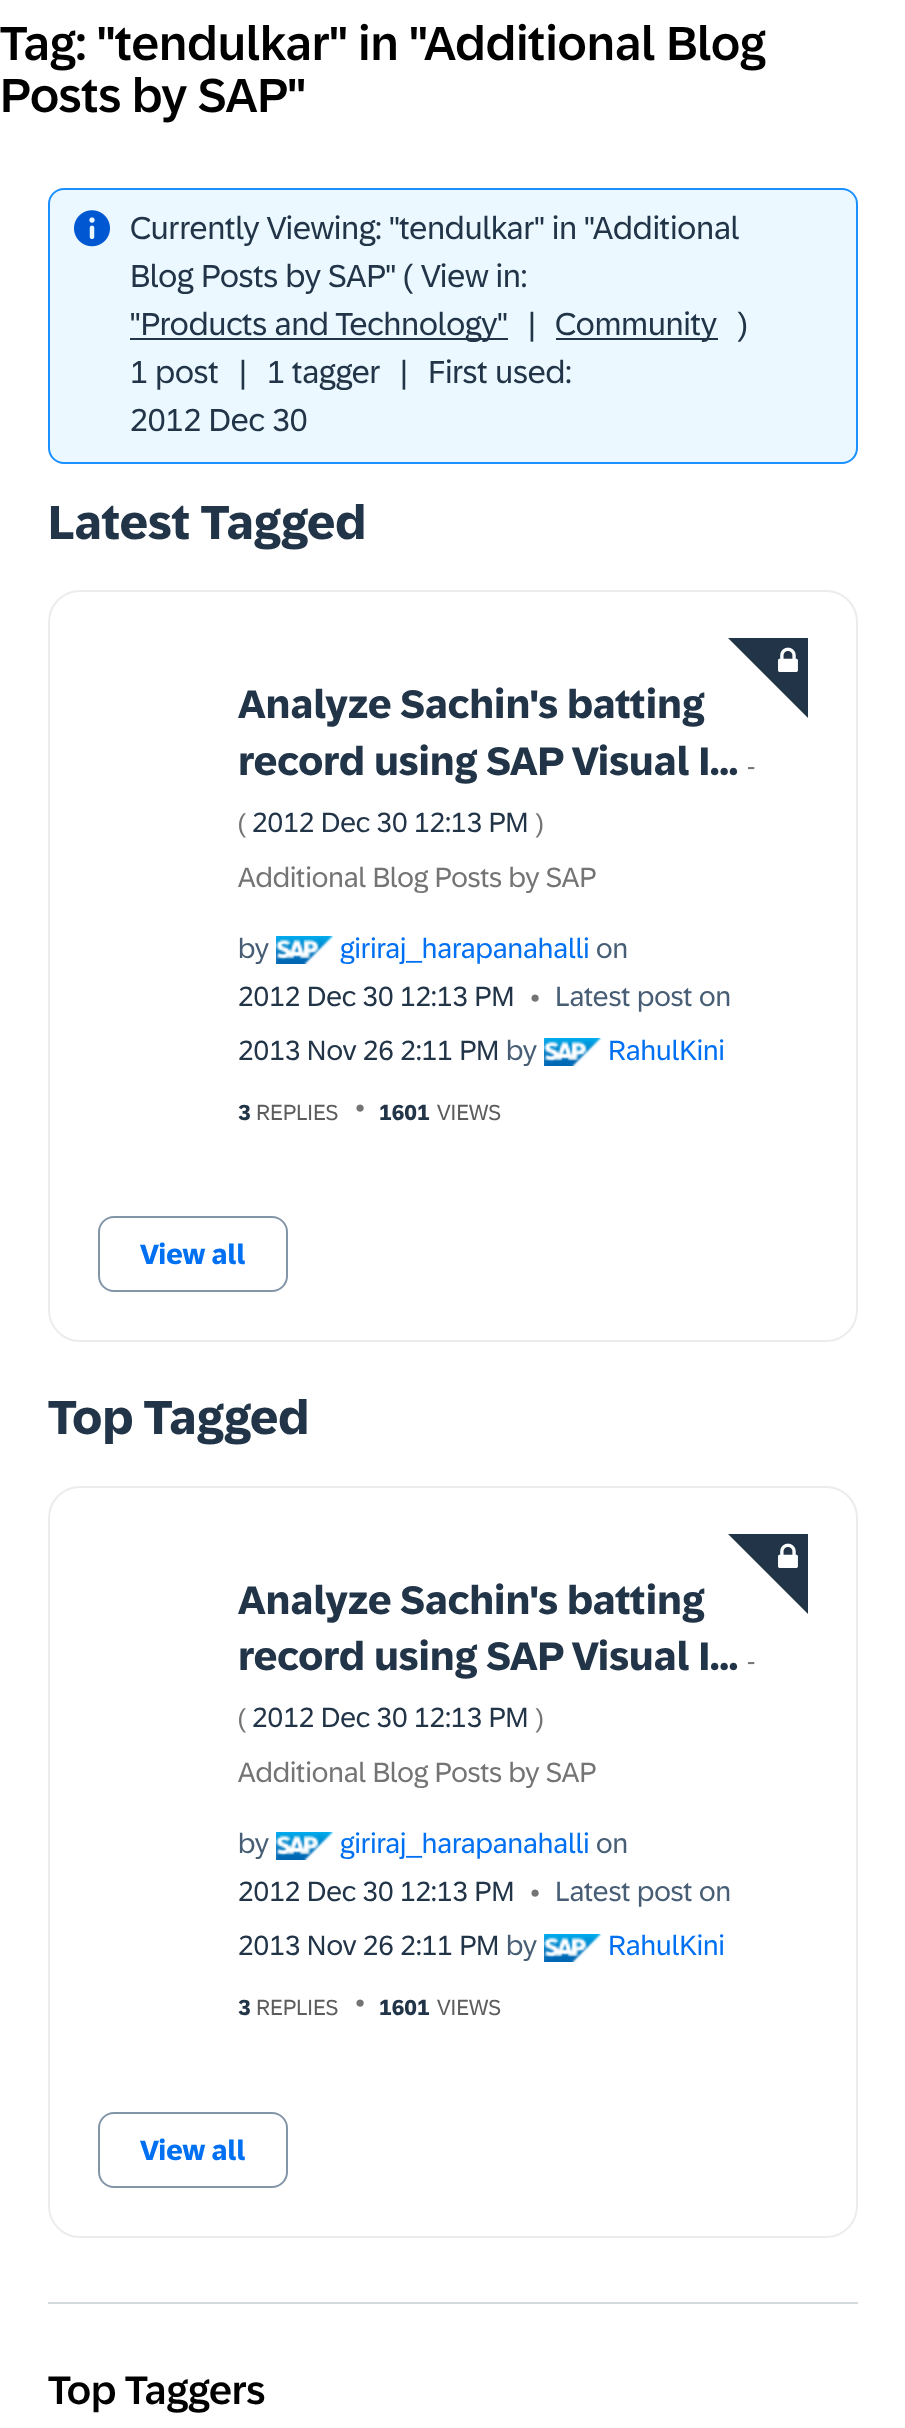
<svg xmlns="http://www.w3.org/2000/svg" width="905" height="2428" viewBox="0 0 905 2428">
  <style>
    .t1 { font: 500 48px '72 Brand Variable'; fill: #000; }
    .t2 { font: 32px '72 Brand Variable'; fill: #223548; }
    .t3 { font: bold 48px '72 Brand Variable'; fill: #223548; }
    .t4 { font: bold 40px '72 Brand Variable'; fill: #223548; }
    .t5 { font: 26px '72 Brand Variable'; fill: #747474; }
    .t6 { font: 28px '72 Brand Variable'; fill: #223548; }
    .t7 { font: 28px '72 Brand Variable'; fill: #747474; }
    .t8 { font: 28px '72 Brand Variable'; fill: #475e75; }
    .t9 { font: 28px '72 Brand Variable'; fill: #0070f2; }
    .t10 { font: 24px '72 Brand Variable'; fill: #747474; }
    .t11 { font: bold 22px '72 Brand Variable'; fill: #223548; }
    .t12 { font: 22px '72 Brand Variable'; fill: #5d5d5d; }
    .t13 { font: bold 28px '72 Brand Variable'; fill: #0070f2; }
    .t14 { font: 500 40px '72 Brand Variable'; fill: #000; }
  </style>
  <rect width="100%" height="100%" fill="#fff"/>
  <text x="0" y="60" class="t1">Tag: "tendulkar" in "Additional Blog</text>
  <text x="0" y="112" class="t1">Posts by SAP"</text>
  <rect x="49" y="189" width="808" height="274" rx="15" fill="#ebf8ff" stroke="#1b90ff" stroke-width="2"/>
  <image x="74" y="210" width="36" height="37" href="images/1.png"/>
  <text x="130" y="239" class="t2">Currently Viewing: "tendulkar" in "Additional</text>
  <text x="130" y="287" class="t2">Blog Posts by SAP" ( View in:</text>
  <rect x="130" y="338" width="378" height="2" fill="#223548"/>
  <text x="130" y="335" class="t2">"Products and Technology"</text>
  <text x="528" y="335" class="t2">|</text>
  <rect x="556" y="338" width="162" height="2" fill="#223548"/>
  <text x="555" y="335" class="t2">Community</text>
  <text x="737" y="335" class="t2">)</text>
  <text x="130" y="383" class="t2">1 post</text>
  <text x="239" y="383" class="t2">|</text>
  <text x="267" y="383" class="t2">1 tagger</text>
  <text x="400" y="383" class="t2">|</text>
  <text x="428" y="383" class="t2">First used:</text>
  <text x="130" y="431" class="t2">2012 Dec 30</text>
  <text x="48" y="539" class="t3">Latest Tagged</text>
  <rect x="49" y="591" width="808" height="750" rx="31" fill="none" stroke="#eaecee" stroke-width="2"/>
  <path d="M728 638H808V718Z" fill="#223548"/>
  <image x="778" y="647" width="20" height="25" href="images/2.png"/>
  <text x="238" y="718" class="t4">Analyze Sachin's batting</text>
  <text x="238" y="775" class="t4">record using SAP Visual I...</text>
  <text x="747" y="775" class="t5">-</text>
  <text x="238" y="832" class="t5">(</text>
  <text x="252" y="832" class="t6">2012 Dec 30</text>
  <text x="414" y="832" class="t6">12:13 PM</text>
  <text x="535" y="832" class="t5">)</text>
  <text x="238" y="887" class="t7">Additional Blog Posts by SAP</text>
  <text x="238" y="958" class="t8">by</text>
  <image x="276" y="936" width="58" height="28" href="images/3.png"/>
  <text x="340" y="958" class="t9">giriraj_harapanahalli</text>
  <text x="596" y="958" class="t8">on</text>
  <text x="238" y="1006" class="t6">2012 Dec 30 12:13 PM</text>
  <text x="531" y="1006" class="t10">•</text>
  <text x="555" y="1006" class="t8">Latest post on</text>
  <text x="238" y="1060" class="t6">2013 Nov 26 2:11 PM</text>
  <text x="506" y="1060" class="t8">by</text>
  <image x="544" y="1038" width="58" height="28" href="images/3.png"/>
  <text x="608" y="1060" class="t9">RahulKini</text>
  <text x="238" y="1120" class="t11">3</text>
  <text x="256" y="1120" class="t12">REPLIES</text>
  <text x="356" y="1116" class="t10">•</text>
  <text x="379" y="1120" class="t11">1601</text>
  <text x="437" y="1120" class="t12">VIEWS</text>
  <rect x="99" y="1217" width="188" height="74" rx="15" fill="none" stroke="#8396a8" stroke-width="2"/>
  <text x="140" y="1264" class="t13">View all</text>
  <text x="48" y="1434" class="t3">Top Tagged</text>
  <rect x="49" y="1487" width="808" height="750" rx="31" fill="none" stroke="#eaecee" stroke-width="2"/>
  <path d="M728 1534H808V1614Z" fill="#223548"/>
  <image x="778" y="1543" width="20" height="25" href="images/2.png"/>
  <text x="238" y="1614" class="t4">Analyze Sachin's batting</text>
  <text x="238" y="1670" class="t4">record using SAP Visual I...</text>
  <text x="747" y="1670" class="t5">-</text>
  <text x="238" y="1727" class="t5">(</text>
  <text x="252" y="1727" class="t6">2012 Dec 30</text>
  <text x="414" y="1727" class="t6">12:13 PM</text>
  <text x="535" y="1727" class="t5">)</text>
  <text x="238" y="1782" class="t7">Additional Blog Posts by SAP</text>
  <text x="238" y="1853" class="t8">by</text>
  <image x="276" y="1832" width="58" height="28" href="images/3.png"/>
  <text x="340" y="1853" class="t9">giriraj_harapanahalli</text>
  <text x="596" y="1853" class="t8">on</text>
  <text x="238" y="1901" class="t6">2012 Dec 30 12:13 PM</text>
  <text x="531" y="1901" class="t10">•</text>
  <text x="555" y="1901" class="t8">Latest post on</text>
  <text x="238" y="1955" class="t6">2013 Nov 26 2:11 PM</text>
  <text x="506" y="1955" class="t8">by</text>
  <image x="544" y="1934" width="58" height="28" href="images/3.png"/>
  <text x="608" y="1955" class="t9">RahulKini</text>
  <text x="238" y="2015" class="t11">3</text>
  <text x="256" y="2015" class="t12">REPLIES</text>
  <text x="356" y="2011" class="t10">•</text>
  <text x="379" y="2015" class="t11">1601</text>
  <text x="437" y="2015" class="t12">VIEWS</text>
  <rect x="99" y="2113" width="188" height="74" rx="15" fill="none" stroke="#8396a8" stroke-width="2"/>
  <text x="140" y="2160" class="t13">View all</text>
  <rect x="48" y="2302" width="810" height="2" fill="#d5dadd"/>
  <text x="48" y="2404" class="t14">Top Taggers</text>
</svg>
